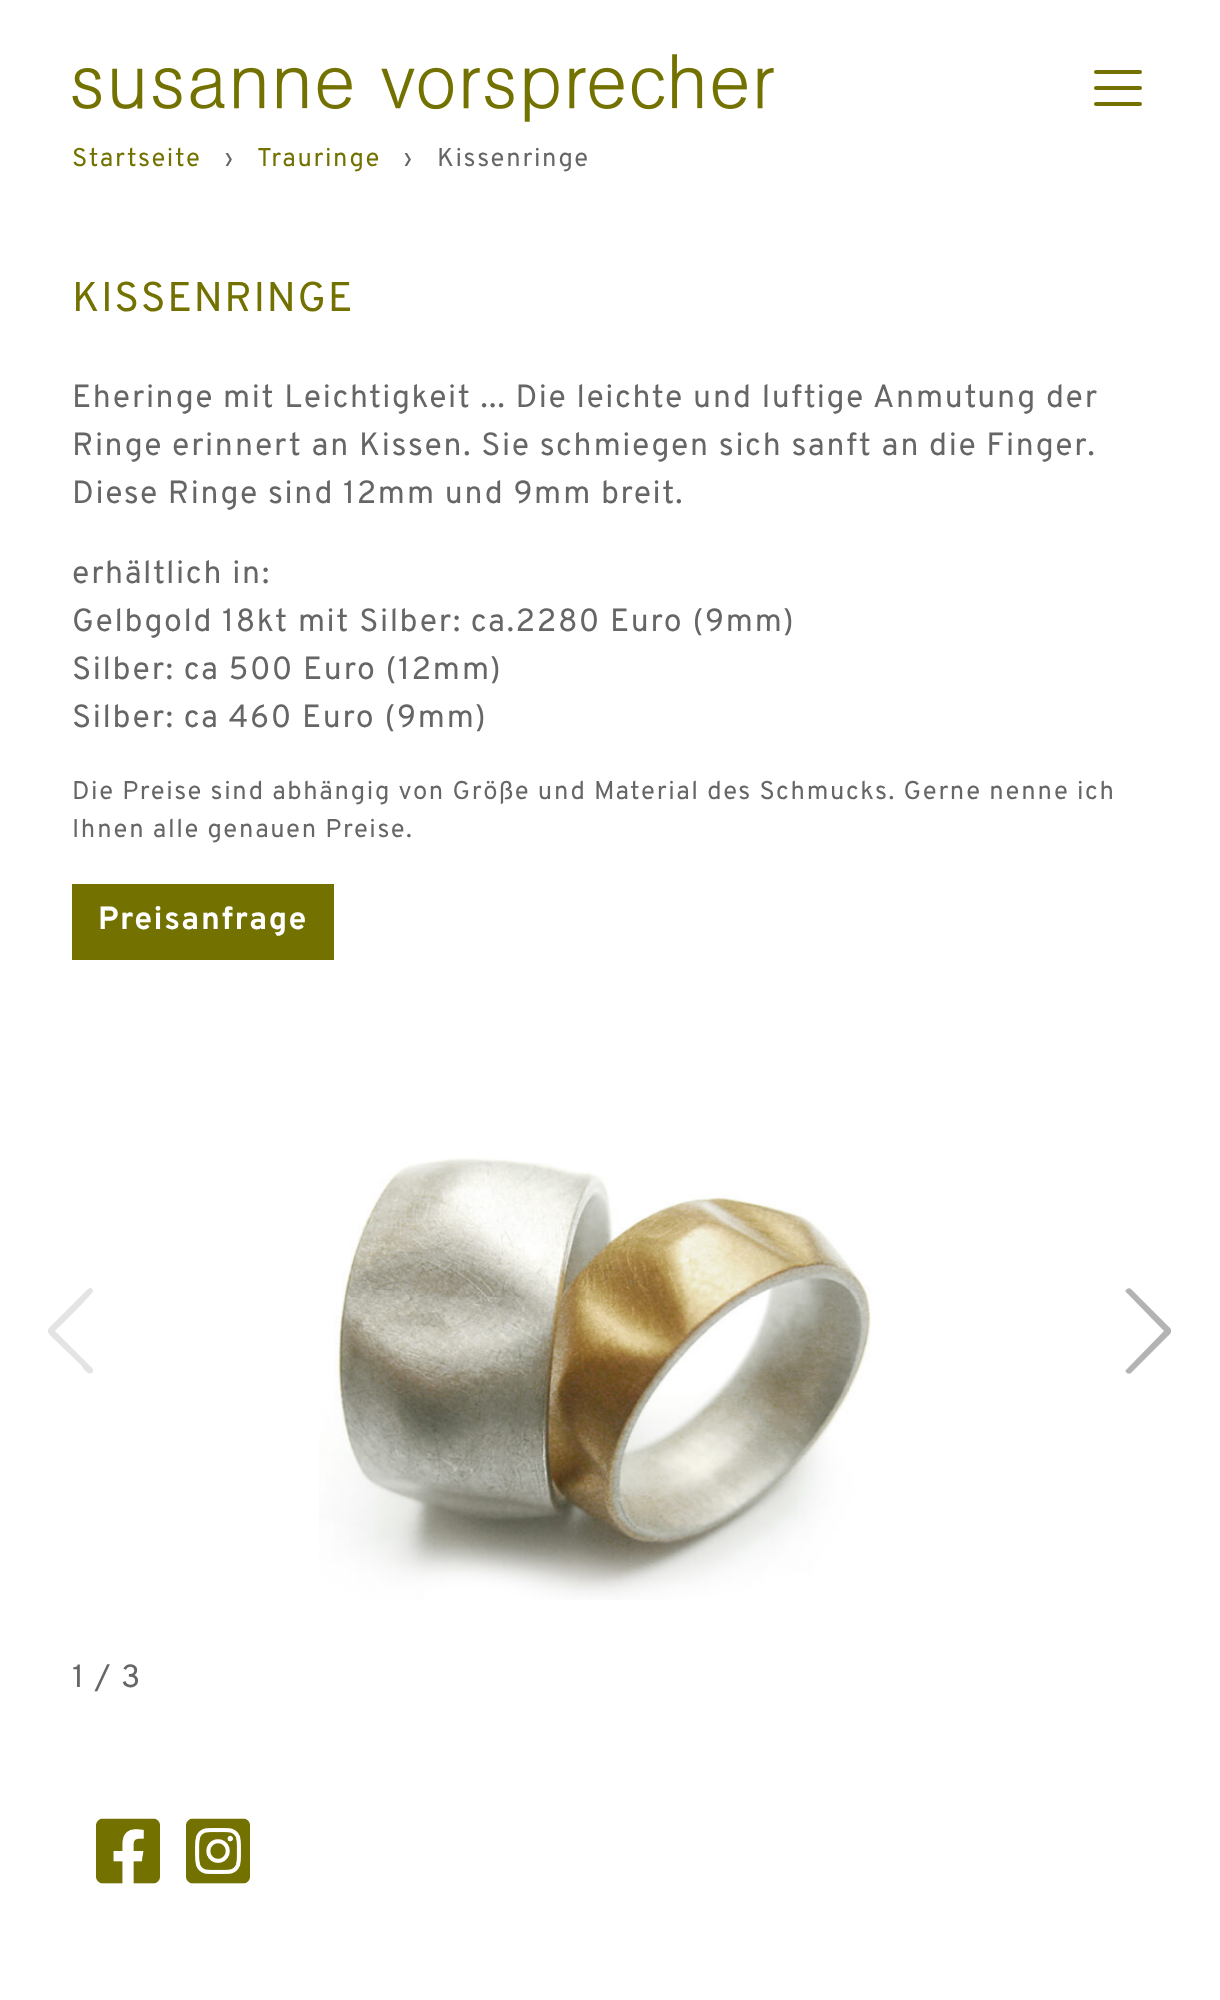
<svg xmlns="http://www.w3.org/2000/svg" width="1220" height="2000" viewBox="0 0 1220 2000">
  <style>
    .t1 { font: 25.6px Overpass; letter-spacing: 1.6px; fill: #737100; }
    .t2 { font: 25.6px Overpass; letter-spacing: 1.6px; fill: #666; }
    .t3 { font: 41.5px Overpass; letter-spacing: 1.6px; fill: #737100; }
    .t4 { font: 32px Overpass; letter-spacing: 1.6px; fill: #666; }
    .t5 { font: bold 32px Overpass; letter-spacing: 1.6px; fill: #fff; }
  </style>
  <rect width="100%" height="100%" fill="#fff"/>
  <image x="72" y="54" width="702" height="68" href="images/1.png"/>
  <path d="M1096 72H1140M1096 88H1140M1096 104H1140" fill="none" stroke="#737100" stroke-width="4" stroke-linecap="round"/>
  <text x="72" y="166" class="t1">Startseite</text>
  <text x="225" y="166" class="t2">›</text>
  <text x="257" y="166" class="t1">Trauringe</text>
  <text x="404" y="166" class="t2">›</text>
  <text x="437" y="166" class="t2">Kissenringe</text>
  <text x="72" y="311" class="t3">KISSENRINGE</text>
  <text x="72" y="407" class="t4">Eheringe mit Leichtigkeit ... Die leichte und luftige Anmutung der</text>
  <text x="72" y="455" class="t4">Ringe erinnert an Kissen. Sie schmiegen sich sanft an die Finger.</text>
  <text x="72" y="503" class="t4">Diese Ringe sind 12mm und 9mm breit.</text>
  <text x="72" y="583" class="t4">erhältlich in:</text>
  <text x="72" y="631" class="t4">Gelbgold 18kt mit Silber: ca.2280 Euro (9mm)</text>
  <text x="72" y="679" class="t4">Silber: ca 500 Euro (12mm)</text>
  <text x="72" y="727" class="t4">Silber: ca 460 Euro (9mm)</text>
  <text x="72" y="799" class="t2">Die Preise sind abhängig von Größe und Material des Schmucks. Gerne nenne ich</text>
  <text x="72" y="837" class="t2">Ihnen alle genauen Preise.</text>
  <rect x="72" y="884" width="262" height="76" fill="#737100"/>
  <text x="98" y="929" class="t5">Preisanfrage</text>
  <path d="M88 1289C90 1287 93 1288 93 1291C93 1294 59 1327 55 1331L93 1369V1371L92 1373C88 1376 82 1367 82 1366L56 1341C45 1330 45 1332 56 1321Z" fill="#e4e4e4"/>
  <image x="319" y="1157" width="552" height="443" href="images/2.png"/>
  <path d="M1127 1373C1125 1372 1125 1370 1127 1369L1164 1331L1127 1293C1125 1292 1125 1290 1127 1289C1128 1288 1130 1288 1131 1289L1170 1328C1171 1329 1171 1330 1171 1331C1171 1332 1171 1333 1170 1334L1131 1373C1130 1374 1128 1374 1127 1373Z" fill="#b3b3b3"/>
  <text x="72" y="1687" class="t4">1 / 3</text>
  <image x="96" y="1818" width="64" height="66" href="images/3.png"/>
  <image x="186" y="1818" width="64" height="66" href="images/4.png"/>
</svg>
